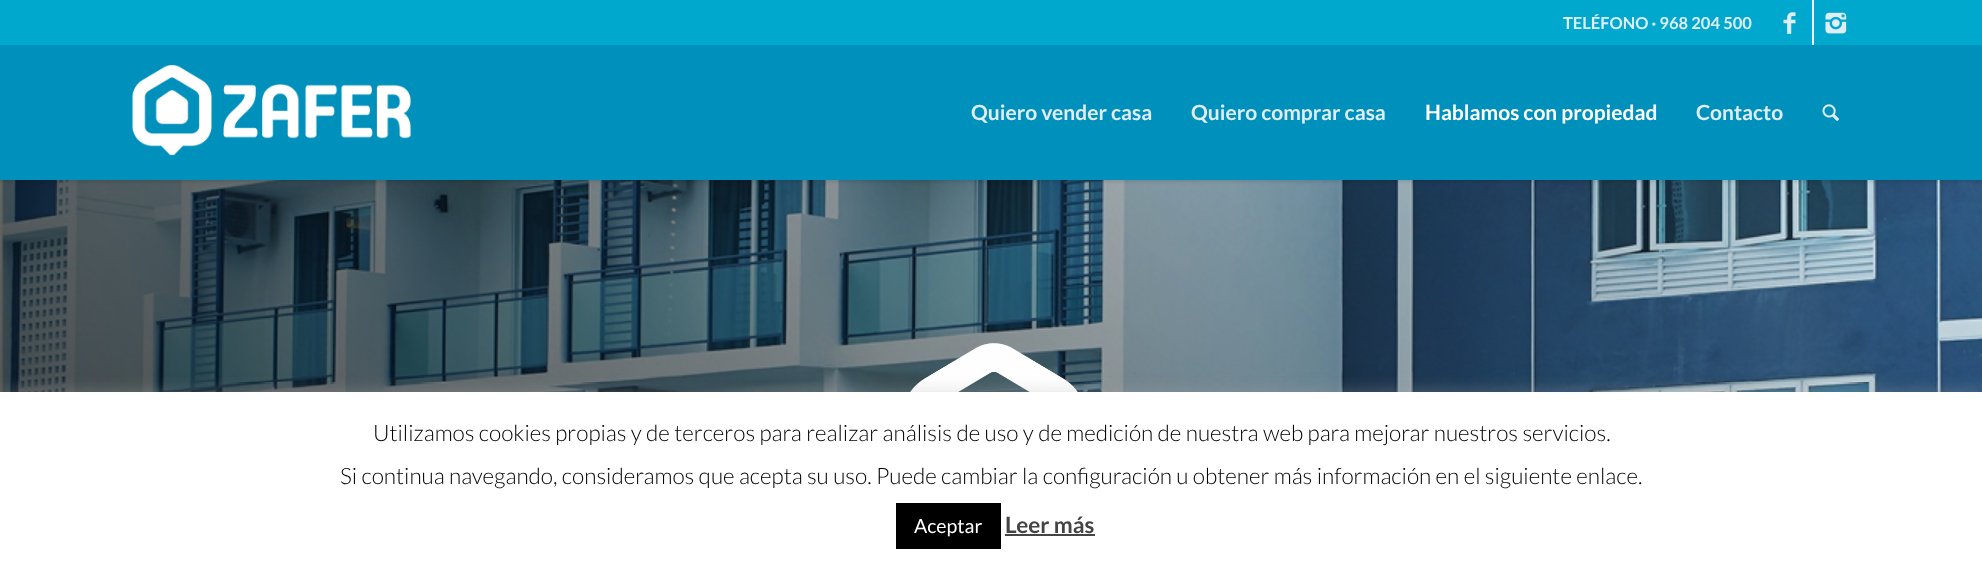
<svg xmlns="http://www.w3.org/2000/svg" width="1982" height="566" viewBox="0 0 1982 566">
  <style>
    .t1 { font: bold 16.5px Lato; fill: #deedf7; }
    .t2 { font: bold 21px Lato; fill: #deedf7; }
    .t3 { font: bold 21px Lato; fill: #fff; }
    .t4 { font: 300 22.5px Lato; fill: #000; }
    .t5 { font: 19.5px Lato; fill: #fff; }
    .t6 { font: bold 22.5px Lato; fill: #444; }
  </style>
  <rect width="100%" height="100%" fill="#fff"/>
  <image x="0" y="180" width="1982" height="212" href="images/5.png"/>
  <rect x="-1" y="-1" width="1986" height="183" fill="#0000001a" filter="blur(1.5px)"/>
  <rect x="0" y="0" width="1982" height="45" fill="#01a8ce"/>
  <text x="1563" y="29" class="t1">TELÉFONO · 968 204 500</text>
  <rect x="1812" y="0" width="2" height="45" fill="#f0f0f0"/>
  <image x="1783" y="12" width="13" height="22" href="images/1.png"/>
  <image x="1825" y="12" width="22" height="22" href="images/2.png"/>
  <rect x="0" y="45" width="1982" height="135" fill="#0090bc"/>
  <image x="132" y="65" width="279" height="91" href="images/3.png"/>
  <text x="971" y="120" class="t2">Quiero vender casa</text>
  <text x="1191" y="120" class="t2">Quiero comprar casa</text>
  <text x="1425" y="120" class="t3">Hablamos con propiedad</text>
  <text x="1696" y="120" class="t2">Contacto</text>
  <image x="1822" y="104" width="17" height="17" href="images/4.png"/>
  <image x="910" y="343" width="168" height="49" href="images/6.png"/>
  <rect x="0" y="390" width="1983" height="176" fill="#acabab4d" filter="blur(7.5px)"/>
  <rect x="0" y="392" width="1982" height="174" fill="#fff"/>
  <text x="373" y="441" class="t4">Utilizamos cookies propias y de terceros para realizar análisis de uso y de medición de nuestra web para mejorar nuestros servicios.</text>
  <text x="340" y="484" class="t4">Si continua navegando, consideramos que acepta su uso. Puede cambiar la configuración u obtener más información en el siguiente enlace.</text>
  <rect x="896" y="503" width="105" height="46" fill="#000"/>
  <text x="914" y="533" class="t5">Aceptar</text>
  <text x="1005" y="533" class="t6">Leer más</text>
  <rect x="1005" y="534" width="90" height="2" fill="#444"/>
</svg>
